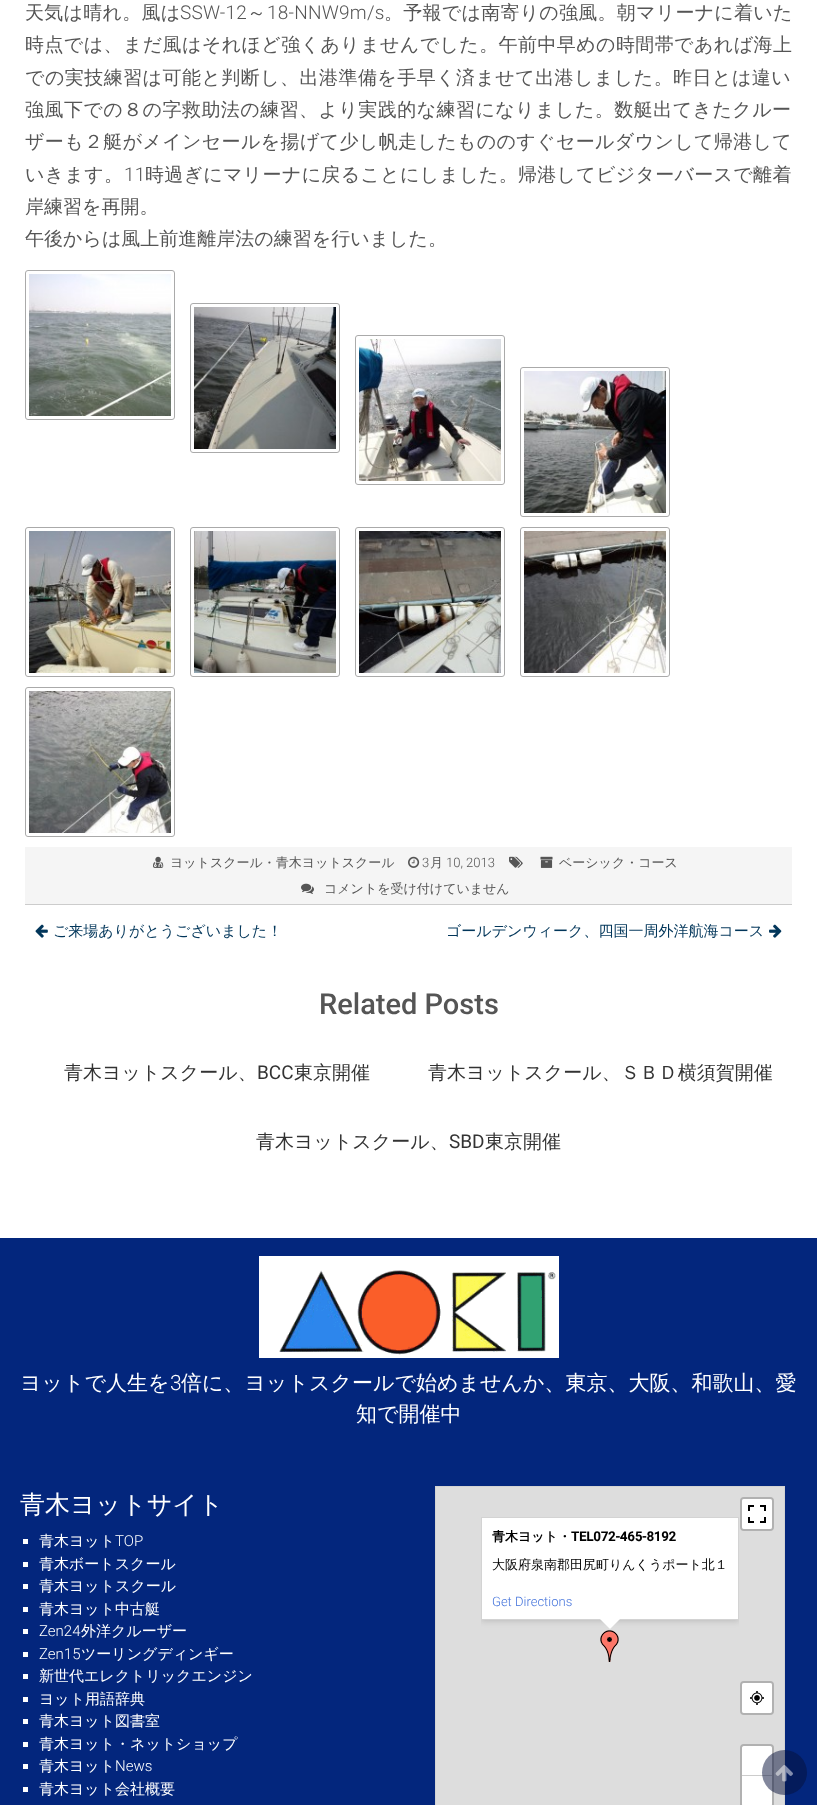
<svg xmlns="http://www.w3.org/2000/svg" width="817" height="1805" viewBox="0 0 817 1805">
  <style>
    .t1 { font: 500 19px WenQuanYi Zen Hei; letter-spacing: 0.25px; fill: #555; }
    .t2 { font: 300 19px Roboto; letter-spacing: 0.25px; fill: #555; }
    .t3 { font: 500 19px WenQuanYi Zen Hei; letter-spacing: 0.4px; fill: #555; }
    .t4 { font: 500 19px WenQuanYi Zen Hei; letter-spacing: 0.45px; fill: #555; }
    .t5 { font: 500 19px WenQuanYi Zen Hei; letter-spacing: 0.35px; fill: #555; }
    .t6 { font: 500 19px WenQuanYi Zen Hei; letter-spacing: 0.3px; fill: #555; }
    .t7 { font: 300 19px Roboto; letter-spacing: 0.3px; fill: #555; }
    .t8 { font: 500 19px WenQuanYi Zen Hei; fill: #555; }
    .t9 { font: 500 13px WenQuanYi Zen Hei; fill: #555; }
    .t10 { font: 300 13px Roboto; fill: #555; }
    .t11 { font: 500 15px WenQuanYi Zen Hei; fill: #02365a; }
    .t12 { font: 500 29px Roboto; fill: #555; }
    .t13 { font: 500 19px WenQuanYi Zen Hei; fill: #333; }
    .t14 { font: 19px Roboto; fill: #333; }
    .t15 { font: 500 21px WenQuanYi Zen Hei; fill: #fff; }
    .t16 { font: 300 21px Roboto; fill: #fff; }
    .t17 { font: 500 25px WenQuanYi Zen Hei; fill: #fff; }
    .t18 { font: 500 15px WenQuanYi Zen Hei; fill: #fff; }
    .t19 { font: 300 15px Roboto; fill: #fff; }
    .t20 { font: bold 13px WenQuanYi Zen Hei; fill: #000; }
    .t21 { font: bold 13px Roboto; fill: #000; }
    .t22 { font: 500 13px WenQuanYi Zen Hei; fill: #000; }
    .t23 { font: 300 13px Roboto; fill: #4272db; }
  </style>
  <defs>
    <clipPath id="clip1"><rect x="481" y="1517" width="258" height="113"/></clipPath>
  </defs>
  <rect width="100%" height="100%" fill="#fff"/>
  <text x="25" y="19" class="t1">天気は晴れ。風は</text>
  <text x="180" y="19" class="t2">SSW-12</text>
  <text x="247" y="19" class="t1">～</text>
  <text x="267" y="19" class="t2">18-NNW9m/s</text>
  <text x="384" y="19" class="t1">。予報では南寄りの強風。朝マリーナに着いた</text>
  <text x="25" y="51" class="t3">時点では、まだ風はそれほど強くありませんでした。午前中早めの時間帯であれば海上</text>
  <text x="25" y="84" class="t4">での実技練習は可能と判断し、出港準備を手早く済ませて出港しました。昨日とは違い</text>
  <text x="25" y="116" class="t4">強風下での８の字救助法の練習、より実践的な練習になりました。数艇出てきたクルー</text>
  <text x="25" y="148" class="t5">ザーも２艇がメインセールを揚げて少し帆走したもののすぐセールダウンして帰港して</text>
  <text x="25" y="181" class="t6">いきます。</text>
  <text x="124" y="181" class="t7">11</text>
  <text x="145" y="181" class="t6">時過ぎにマリーナに戻ることにしました。帰港してビジターバースで離着</text>
  <text x="25" y="213" class="t8">岸練習を再開。</text>
  <text x="25" y="245" class="t8">午後からは風上前進離岸法の練習を行いました。</text>
  <rect x="25.5" y="270.5" width="149" height="149" rx="2.5" fill="none" stroke="#aaa"/>
  <image x="29" y="274" width="142" height="142" href="images/1.png"/>
  <rect x="190.5" y="303.5" width="149" height="149" rx="2.5" fill="none" stroke="#aaa"/>
  <image x="194" y="307" width="142" height="142" href="images/2.png"/>
  <rect x="355.5" y="335.5" width="149" height="149" rx="2.5" fill="none" stroke="#aaa"/>
  <image x="359" y="339" width="142" height="142" href="images/3.png"/>
  <rect x="520.5" y="367.5" width="149" height="149" rx="2.5" fill="none" stroke="#aaa"/>
  <image x="524" y="371" width="142" height="142" href="images/4.png"/>
  <rect x="25.5" y="527.5" width="149" height="149" rx="2.5" fill="none" stroke="#aaa"/>
  <image x="29" y="531" width="142" height="142" href="images/5.png"/>
  <rect x="190.5" y="527.5" width="149" height="149" rx="2.5" fill="none" stroke="#aaa"/>
  <image x="194" y="531" width="142" height="142" href="images/6.png"/>
  <rect x="355.5" y="527.5" width="149" height="149" rx="2.5" fill="none" stroke="#aaa"/>
  <image x="359" y="531" width="142" height="142" href="images/7.png"/>
  <rect x="520.5" y="527.5" width="149" height="149" rx="2.5" fill="none" stroke="#aaa"/>
  <image x="524" y="531" width="142" height="142" href="images/8.png"/>
  <rect x="25.5" y="687.5" width="149" height="149" rx="2.5" fill="none" stroke="#aaa"/>
  <image x="29" y="691" width="142" height="142" href="images/9.png"/>
  <rect x="25" y="847" width="767" height="57" fill="#f5f5f5"/>
  <image x="153" y="856" width="11" height="12" href="images/10.png"/>
  <text x="170" y="867" class="t9">ヨットスクール・青木ヨットスクール</text>
  <image x="408" y="856" width="12" height="12" href="images/11.png"/>
  <text x="422" y="867" class="t10">3</text>
  <text x="430" y="867" class="t9">月</text>
  <text x="446" y="867" class="t10">10, 2013</text>
  <image x="509" y="856" width="14" height="12" href="images/12.png"/>
  <image x="540" y="856" width="13" height="12" href="images/13.png"/>
  <text x="559" y="867" class="t9">ベーシック・コース</text>
  <image x="301" y="883" width="13" height="11" href="images/14.png"/>
  <text x="324" y="893" class="t9">コメントを受け付けていません</text>
  <rect x="25" y="904" width="767" height="1" fill="#ccc"/>
  <image x="35" y="924" width="13" height="14" href="images/15.png"/>
  <text x="53" y="936" class="t11">ご来場ありがとうございました！</text>
  <text x="446" y="936" class="t11">ゴールデンウィーク、四国一周外洋航海コース</text>
  <image x="769" y="924" width="13" height="14" href="images/16.png"/>
  <text x="319" y="1014" class="t12">Related Posts</text>
  <text x="64" y="1079" class="t13">青木ヨットスクール、</text>
  <text x="257" y="1079" class="t14">BCC</text>
  <text x="294" y="1079" class="t13">東京開催</text>
  <text x="428" y="1079" class="t13">青木ヨットスクール、ＳＢＤ横須賀開催</text>
  <text x="256" y="1148" class="t13">青木ヨットスクール、</text>
  <text x="449" y="1148" class="t14">SBD</text>
  <text x="485" y="1148" class="t13">東京開催</text>
  <rect x="0" y="1238" width="817" height="567" fill="#03267d"/>
  <image x="259" y="1256" width="300" height="102" href="images/17.png"/>
  <text x="20" y="1390" class="t15">ヨットで人生を</text>
  <text x="170" y="1390" class="t16">3</text>
  <text x="181" y="1390" class="t15">倍に、ヨットスクールで始めませんか、東京、大阪、和歌山、愛</text>
  <text x="356" y="1421" class="t15">知で開催中</text>
  <text x="20" y="1513" class="t17">青木ヨットサイト</text>
  <rect x="23" y="1539" width="5" height="5" fill="#fff"/>
  <text x="39" y="1546" class="t18">青木ヨット</text>
  <text x="115" y="1546" class="t19">TOP</text>
  <rect x="23" y="1562" width="5" height="5" fill="#fff"/>
  <text x="39" y="1569" class="t18">青木ボートスクール</text>
  <rect x="23" y="1584" width="5" height="5" fill="#fff"/>
  <text x="39" y="1591" class="t18">青木ヨットスクール</text>
  <rect x="23" y="1607" width="5" height="5" fill="#fff"/>
  <text x="39" y="1614" class="t18">青木ヨット中古艇</text>
  <rect x="23" y="1629" width="5" height="5" fill="#fff"/>
  <text x="39" y="1636" class="t19">Zen24</text>
  <text x="81" y="1636" class="t18">外洋クルーザー</text>
  <rect x="23" y="1652" width="5" height="5" fill="#fff"/>
  <text x="39" y="1659" class="t19">Zen15</text>
  <text x="81" y="1659" class="t18">ツーリングディンギー</text>
  <rect x="23" y="1674" width="5" height="5" fill="#fff"/>
  <text x="39" y="1681" class="t18">新世代エレクトリックエンジン</text>
  <rect x="23" y="1697" width="5" height="5" fill="#fff"/>
  <text x="39" y="1704" class="t18">ヨット用語辞典</text>
  <rect x="23" y="1719" width="5" height="5" fill="#fff"/>
  <text x="39" y="1726" class="t18">青木ヨット図書室</text>
  <rect x="23" y="1742" width="5" height="5" fill="#fff"/>
  <text x="39" y="1749" class="t18">青木ヨット・ネットショップ</text>
  <rect x="23" y="1764" width="5" height="5" fill="#fff"/>
  <text x="39" y="1771" class="t18">青木ヨット</text>
  <text x="115" y="1771" class="t19">News</text>
  <rect x="23" y="1787" width="5" height="5" fill="#fff"/>
  <text x="39" y="1794" class="t18">青木ヨット会社概要</text>
  <rect x="435.5" y="1486.5" width="349" height="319" fill="none" stroke="#d3d3d3"/>
  <rect x="436" y="1487" width="348" height="318" fill="#ddd"/>
  <image x="600" y="1630" width="19" height="32" href="images/18.png"/>
  <rect x="741" y="1745" width="32" height="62" rx="3" fill="none" stroke="#b1b1b1" stroke-width="2"/>
  <path d="M744 1746H770C771 1746 772 1747 772 1748V1776H742V1748C742 1747 743 1746 744 1746Z" fill="#fff"/>
  <rect x="742" y="1775" width="30" height="1" fill="#ccc"/>
  <path d="M742 1776H772V1804C772 1805 771 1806 770 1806H744C743 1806 742 1805 742 1804Z" fill="#fff"/>
  <rect x="741" y="1498" width="32" height="32" rx="3" fill="none" stroke="#b1b1b1" stroke-width="2"/>
  <rect x="742" y="1499" width="30" height="30" rx="2" fill="#fff"/>
  <image x="748" y="1505" width="18" height="18" href="images/19.png"/>
  <g clip-path="url(#clip1)">
    <rect x="481" y="1517" width="258" height="103" fill="#00000033" filter="blur(3.5px)"/>
  </g>
  <rect x="481.5" y="1517.5" width="257" height="102" fill="#fff" stroke="#d3d3d3"/>
  <text x="492" y="1541" class="t20">青木ヨット・</text>
  <text x="571" y="1541" class="t21">TEL072-465-8192</text>
  <text x="492" y="1569" class="t22">大阪府泉南郡田尻町りんくうポート北１</text>
  <text x="492" y="1606" class="t23">Get Directions</text>
  <path d="M600 1619H620L610 1629Z" fill="#fff"/>
  <rect x="741" y="1682" width="32" height="32" rx="3" fill="none" stroke="#b1b1b1" stroke-width="2"/>
  <rect x="742" y="1683" width="30" height="30" rx="2" fill="#fff"/>
  <image x="750" y="1691" width="14" height="14" href="images/20.png"/>
  <circle cx="784.5" cy="1772.5" r="22.5" fill="#05103980"/>
  <image x="775" y="1765" width="18" height="17" href="images/21.png"/>
</svg>
